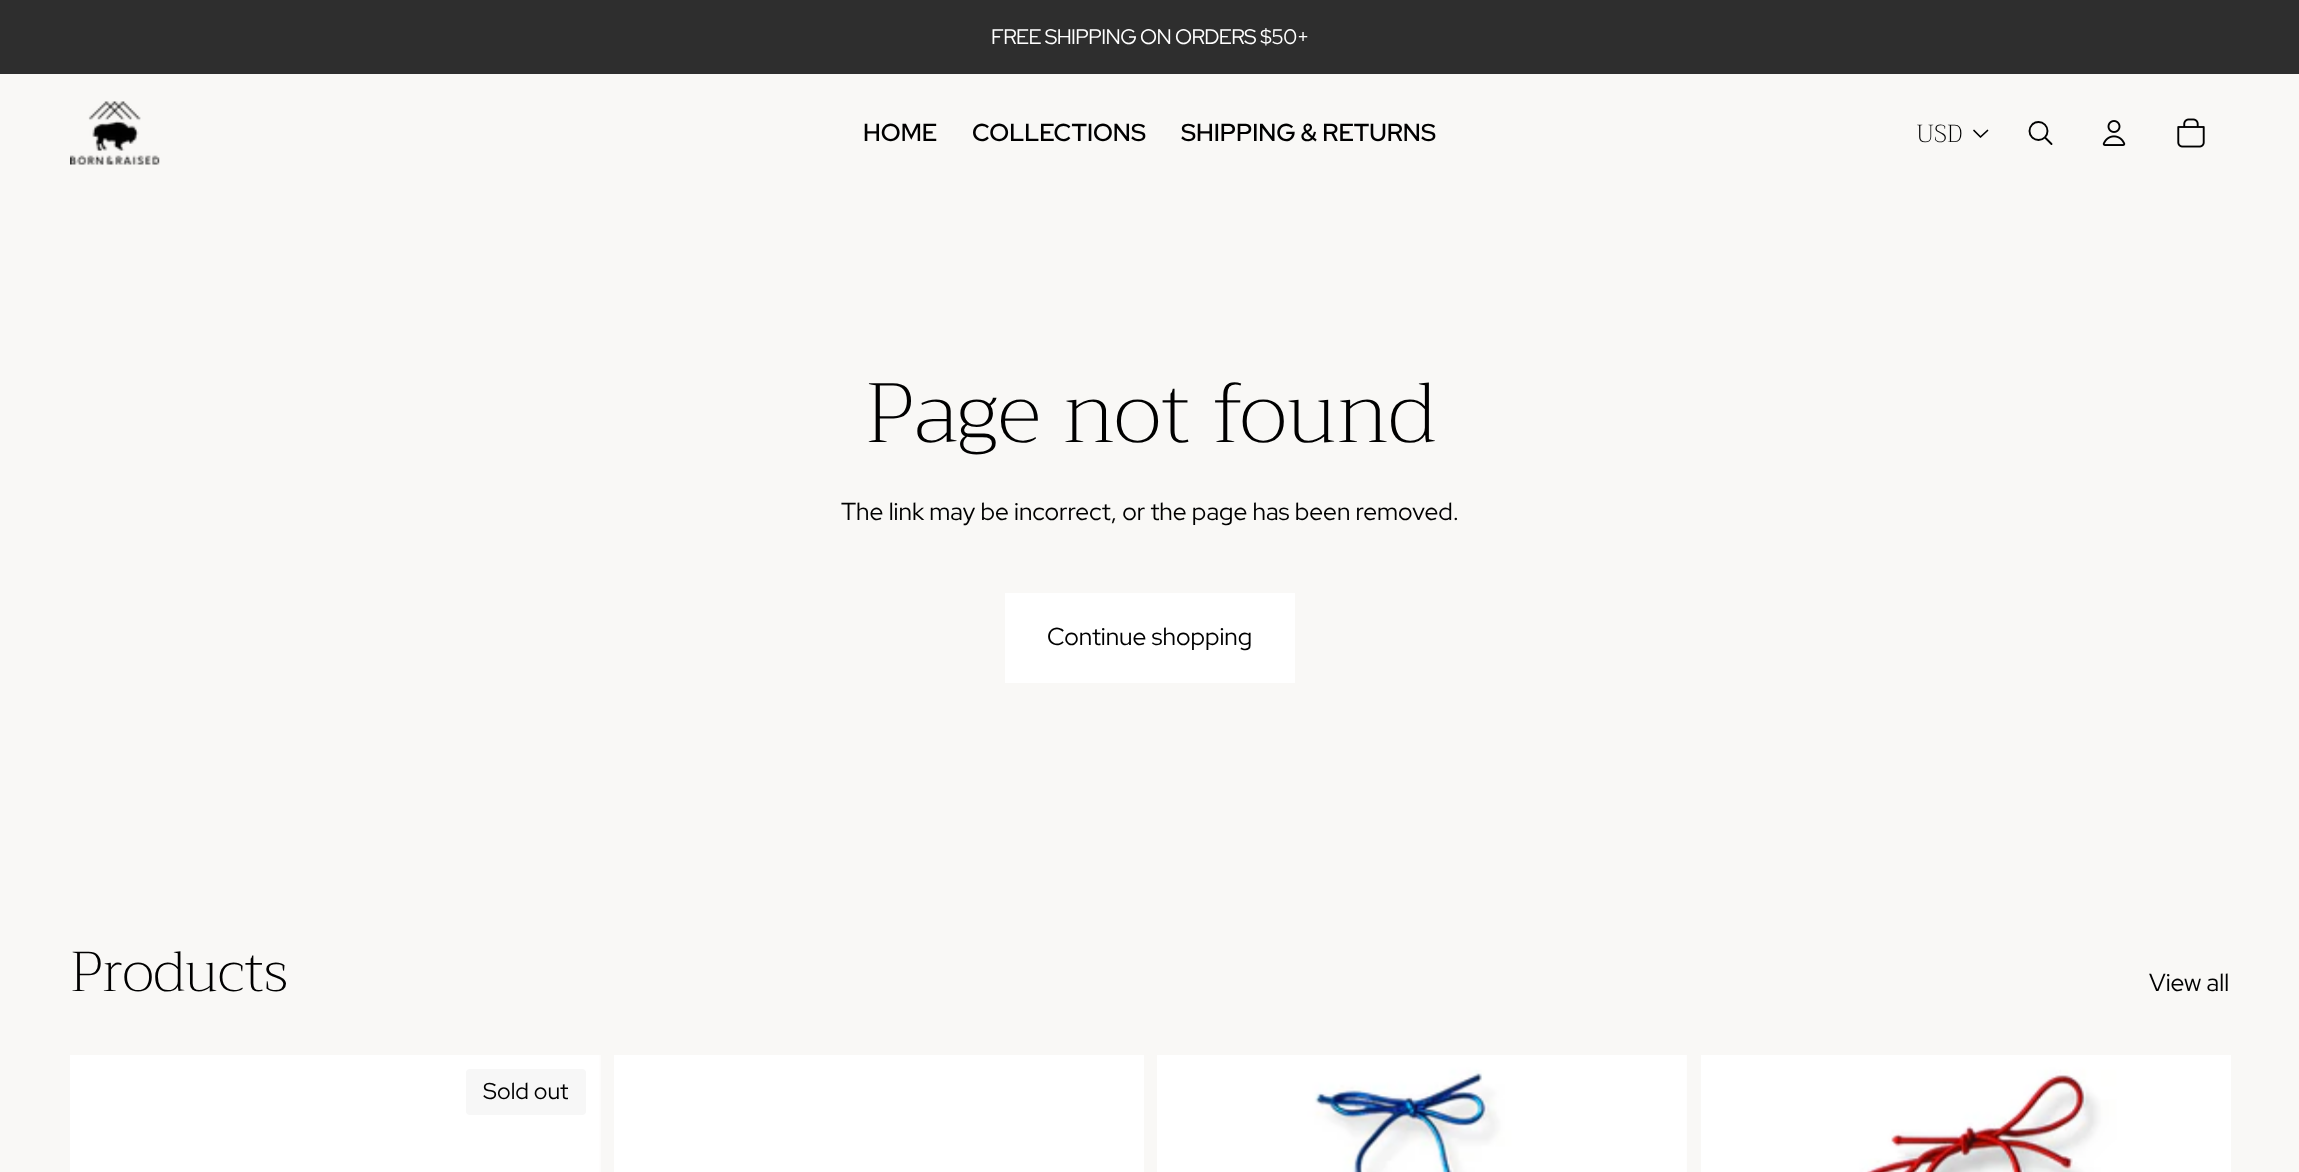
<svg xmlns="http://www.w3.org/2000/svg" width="2299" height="1172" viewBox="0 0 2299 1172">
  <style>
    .t1 { font: 21px Red Hat Display; letter-spacing: -0.6px; fill: #fff; }
    .t2 { font: 600 24.5px Red Hat Display; fill: #000; }
    .t3 { font: 300 24.5px Trirong; fill: #000; }
    .t4 { font: 300 84px Trirong; fill: #000; }
    .t5 { font: 24.5px Red Hat Display; fill: #000; }
    .t6 { font: 300 56px Trirong; fill: #000; }
    .t7 { font: 23px Red Hat Display; fill: #000; }
  </style>
  <rect width="100%" height="100%" fill="#f9f8f6"/>
  <rect x="0" y="0" width="2299" height="74" fill="#2e2e2e"/>
  <text x="991" y="44" class="t1">FREE SHIPPING ON ORDERS $50+</text>
  <image x="70" y="101" width="90" height="64" href="images/1.png"/>
  <text x="863" y="141" class="t2">HOME</text>
  <text x="972" y="141" class="t2">COLLECTIONS</text>
  <text x="1181" y="141" class="t2">SHIPPING &amp; RETURNS</text>
  <text x="1916" y="142" class="t3">USD</text>
  <path d="M1987.5 130.5L1980.5 137L1974 130.5" fill="none" stroke="#000" stroke-width="1.7" stroke-linecap="round" stroke-linejoin="round"/>
  <circle cx="2038.5" cy="131" r="9" fill="none" stroke="#000" stroke-width="1.9"/>
  <path d="M2045.5 138L2051.5 144" fill="none" stroke="#000" stroke-width="1.9" stroke-linecap="round" stroke-linejoin="round"/>
  <image x="2102" y="120" width="24" height="26" href="images/2.png"/>
  <image x="2177" y="118" width="28" height="30" href="images/3.png"/>
  <text x="865" y="442" class="t4">Page not found</text>
  <text x="841" y="520" class="t5">The link may be incorrect, or the page has been removed.</text>
  <rect x="1005" y="593" width="290" height="90" fill="#fff"/>
  <text x="1047" y="645" class="t5">Continue shopping</text>
  <text x="70" y="991" class="t6">Products</text>
  <text x="2149" y="991" class="t5">View all</text>
  <image x="70" y="1055" width="531" height="117" href="images/4.png"/>
  <rect x="466" y="1069" width="120" height="46" rx="4" fill="#f7f7f7"/>
  <text x="483" y="1099" class="t7">Sold out</text>
  <rect x="614" y="1055" width="530" height="117" fill="#fff"/>
  <image x="1157" y="1055" width="530" height="117" href="images/5.png"/>
  <image x="1701" y="1055" width="530" height="117" href="images/6.png"/>
</svg>
